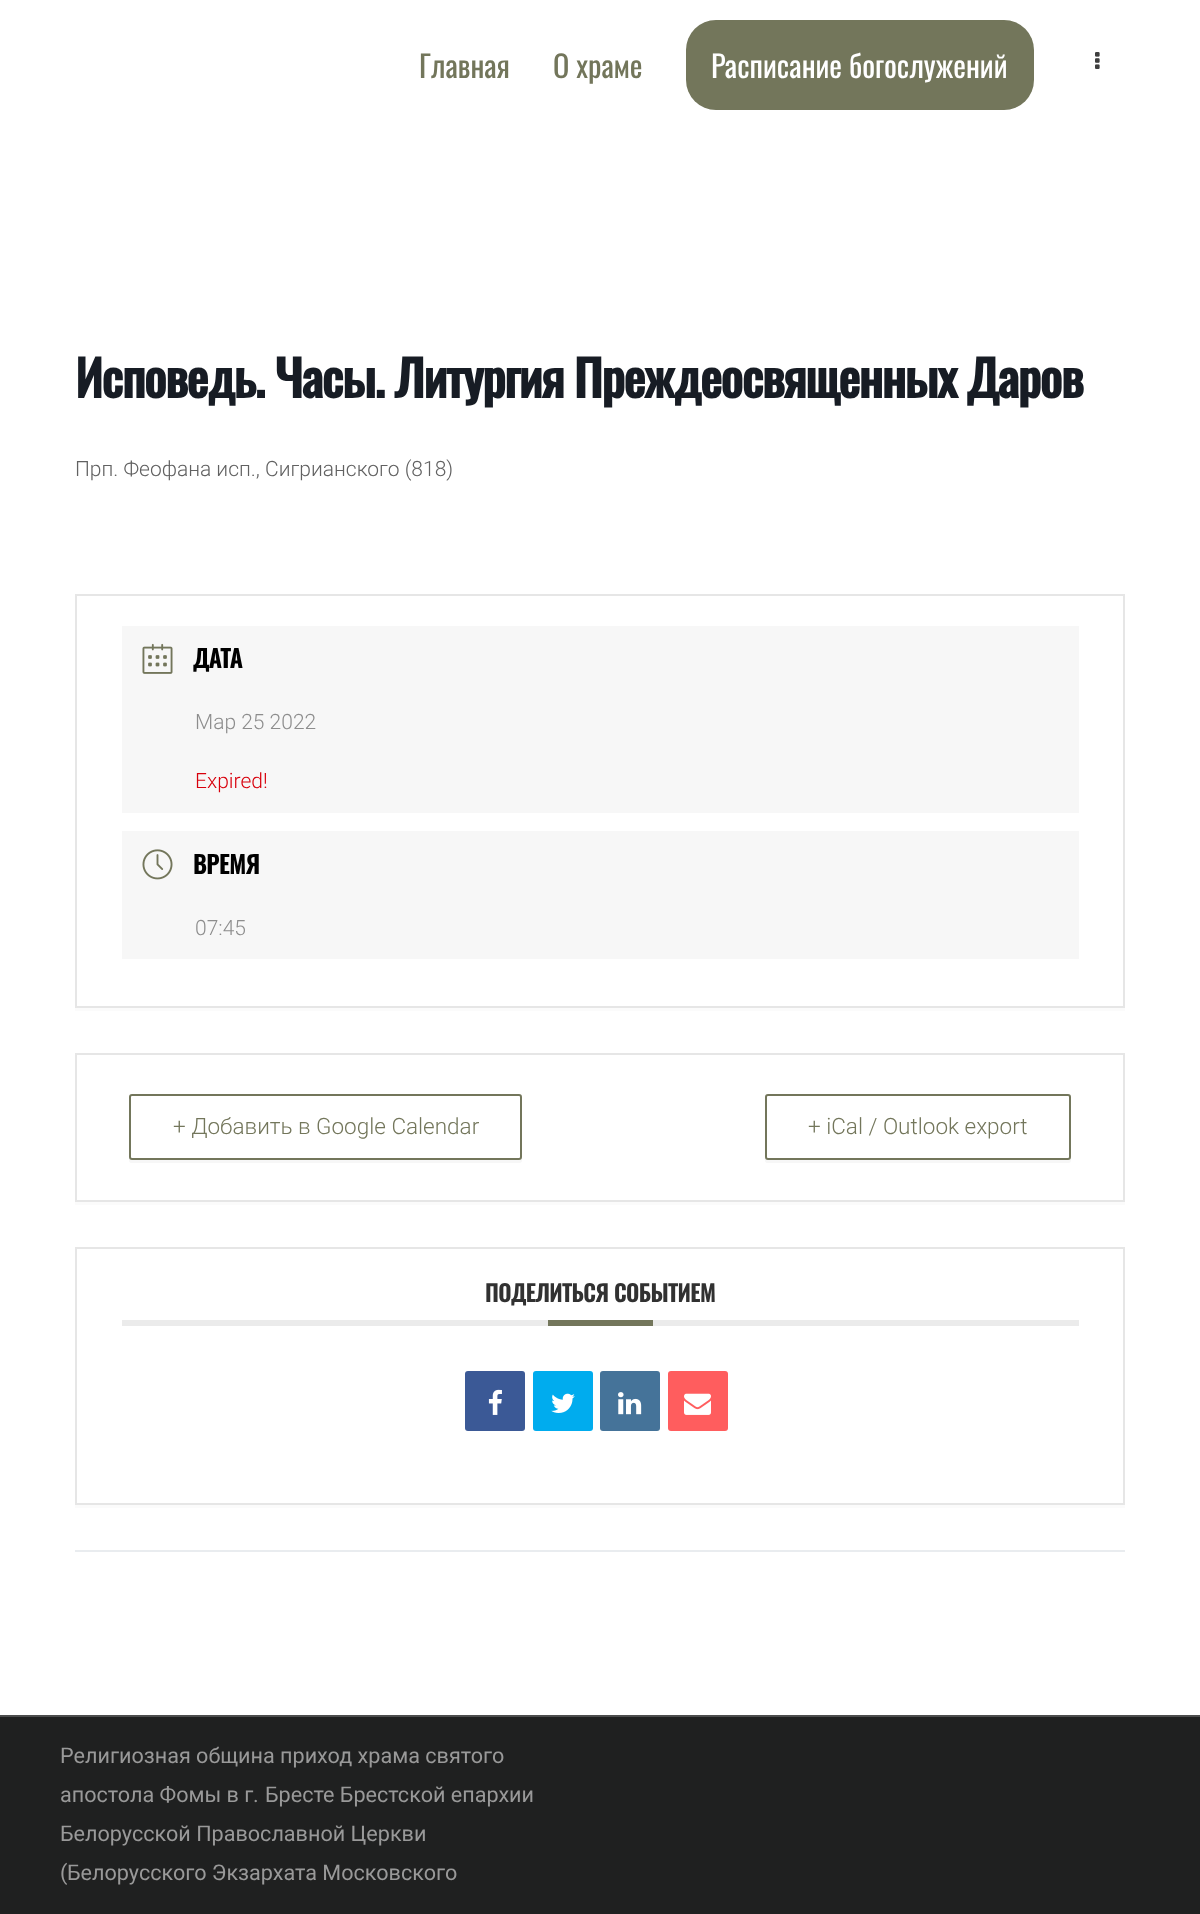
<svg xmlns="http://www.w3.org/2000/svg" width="1200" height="1914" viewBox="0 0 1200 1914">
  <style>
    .t1 { font: 30.25px Oswald; fill: #73765b; }
    .t2 { font: 30.25px Oswald; fill: #fff; }
    .t3 { font: bold 49.5px Oswald; letter-spacing: -1.5px; fill: #171c24; }
    .t4 { font: 300 21px Roboto; fill: #616161; }
    .t5 { font: bold 24px Oswald; fill: #000; }
    .t6 { font: 300 21px Roboto; fill: #8d8d8d; }
    .t7 { font: 300 21px Roboto; fill: #d8000c; }
    .t8 { font: 300 22.5px Roboto; fill: #73765b; }
    .t9 { font: bold 22.5px Oswald; fill: #313131; }
    .t10 { font: 21.6px Roboto; fill: #999; }
    .t11 { font: 21.6px 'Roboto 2'; fill: #999; }
  </style>
  <rect width="100%" height="100%" fill="#fff"/>
  <text x="419" y="78" class="t1">Главная</text>
  <text x="553" y="78" class="t1">О храме</text>
  <rect x="686" y="20" width="348" height="90" rx="30" fill="#73765b"/>
  <text x="711" y="78" class="t2">Расписание богослужений</text>
  <image x="1095" y="52" width="5" height="17" href="images/1.png"/>
  <text x="75" y="398" class="t3">Исповедь. Часы. Литургия Преждеосвященных Даров</text>
  <text x="75" y="476" class="t4">Прп. Феофана исп., Сигрианского (818)</text>
  <rect x="75" y="1008" width="1050" height="3" fill="#fbfbfb"/>
  <rect x="76" y="595" width="1048" height="412" fill="none" stroke="#e6e6e6" stroke-width="2"/>
  <rect x="122" y="626" width="957" height="187" fill="#f7f7f7"/>
  <image x="142" y="643" width="31" height="31" href="images/2.png"/>
  <text x="193" y="668" class="t5">ДАТА</text>
  <text x="195" y="729" class="t6">Мар 25 2022</text>
  <text x="195" y="788" class="t7">Expired!</text>
  <rect x="122" y="831" width="957" height="128" fill="#f7f7f7"/>
  <image x="142" y="849" width="31" height="31" href="images/3.png"/>
  <text x="193" y="874" class="t5">ВРЕМЯ</text>
  <text x="195" y="935" class="t6">07:45</text>
  <rect x="75" y="1202" width="1050" height="3" fill="#fbfbfb"/>
  <rect x="76" y="1054" width="1048" height="147" fill="none" stroke="#e6e6e6" stroke-width="2"/>
  <path d="M129 1156C129 1159 128 1163 132 1163H520C523 1162 522 1159 522 1156C522 1158 521 1160 519 1160H132C130 1160 129 1158 129 1156Z" fill="#f7f7f7"/>
  <rect x="130" y="1095" width="391" height="64" rx="2" fill="#fff" stroke="#73765b" stroke-width="2"/>
  <text x="173" y="1134" class="t8">+ Добавить в Google Calendar</text>
  <path d="M765 1156C765 1159 764 1162 767 1163H1068C1072 1163 1071 1159 1071 1156C1071 1158 1070 1160 1068 1160H768C766 1160 765 1158 765 1156Z" fill="#f7f7f7"/>
  <rect x="766" y="1095" width="304" height="64" rx="2" fill="#fff" stroke="#73765b" stroke-width="2"/>
  <text x="808" y="1134" class="t8">+ iCal / Outlook export</text>
  <rect x="75" y="1505" width="1050" height="3" fill="#fbfbfb"/>
  <rect x="76" y="1248" width="1048" height="256" fill="none" stroke="#e6e6e6" stroke-width="2"/>
  <rect x="122" y="1320" width="957" height="6" fill="#ebebeb"/>
  <text x="485" y="1302" class="t9">ПОДЕЛИТЬСЯ СОБЫТИЕМ</text>
  <rect x="548" y="1320" width="105" height="6" fill="#73765b"/>
  <rect x="465" y="1371" width="60" height="60" rx="3" fill="#3b5996"/>
  <image x="488" y="1389" width="14" height="26" href="images/4.png"/>
  <rect x="533" y="1371" width="60" height="60" rx="3" fill="#00acee"/>
  <image x="551" y="1393" width="24" height="20" href="images/5.png"/>
  <rect x="600" y="1371" width="60" height="60" rx="3" fill="#457399"/>
  <image x="618" y="1392" width="24" height="23" href="images/6.png"/>
  <rect x="668" y="1371" width="60" height="60" rx="3" fill="#ff5d5e"/>
  <image x="684" y="1393" width="27" height="22" href="images/7.png"/>
  <rect x="75" y="1550" width="1050" height="2" fill="#e9ecef"/>
  <rect x="0" y="1717" width="1200" height="197" fill="#1f2020"/>
  <rect x="0" y="1715" width="1200" height="2" fill="#4c4d4d"/>
  <text x="60" y="1763" class="t10">Религиозная община приход храма святого</text>
  <text x="60" y="1802" class="t10">апостола Фомы в г</text>
  <text x="253" y="1802" class="t11">.</text>
  <text x="265" y="1802" class="t10">Бресте Брестской епархии</text>
  <text x="60" y="1841" class="t10">Белорусской Православной Церкви</text>
  <text x="60" y="1880" class="t11">(</text>
  <text x="67" y="1880" class="t10">Белорусского Экзархата Московского</text>
</svg>
